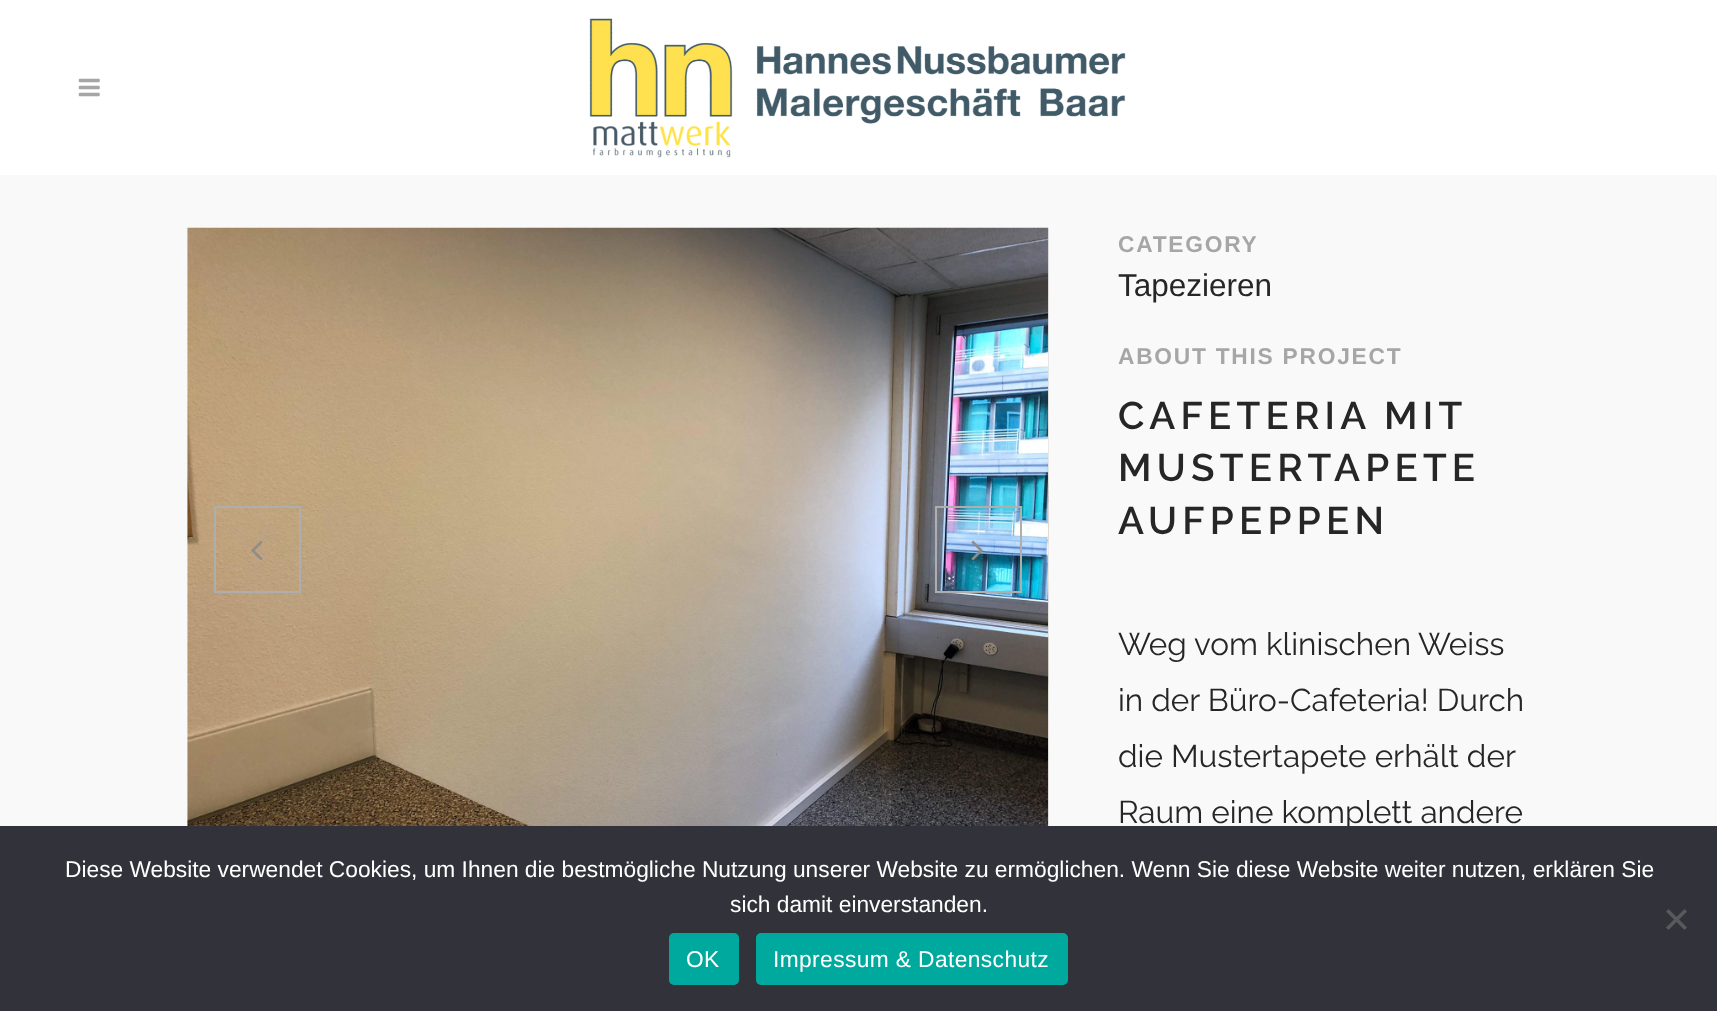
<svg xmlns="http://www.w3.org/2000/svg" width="1717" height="1011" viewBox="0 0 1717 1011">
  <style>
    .t1 { font: bold 22.75px Liberation Sans; letter-spacing: 1.75px; fill: #a6a6a6; }
    .t2 { font: 31.5px Liberation Sans; fill: #262626; }
    .t3 { font: 600 38.5px Raleway; letter-spacing: 5.25px; fill: #262626; }
    .t4 { font: 31.5px Raleway; fill: #262626; }
    .t5 { font: 22.75px Liberation Sans; fill: #fff; }
    .t6 { font: 22.75px Liberation Sans; letter-spacing: 0.4px; fill: #fff; }
  </style>
  <rect width="100%" height="100%" fill="#f9f9f9"/>
  <rect x="0" y="0" width="1717" height="175" fill="#fff"/>
  <image x="78" y="78" width="22" height="19" href="images/1.png"/>
  <image x="589" y="18" width="537" height="140" href="images/2.png"/>
  <image x="187" y="227" width="862" height="599" href="images/3.png"/>
  <image x="1048" y="227" width="1" height="599" href="images/4.png"/>
  <rect x="215" y="507" width="85" height="85" fill="none" stroke="#aeaeae" stroke-width="2"/>
  <image x="251" y="540" width="12" height="21" href="images/5.png"/>
  <rect x="936" y="507" width="85" height="85" fill="none" stroke="#aeaeae" stroke-width="2"/>
  <image x="971" y="540" width="12" height="21" href="images/6.png"/>
  <text x="1118" y="252" class="t1">CATEGORY</text>
  <text x="1118" y="296" class="t2">Tapezieren</text>
  <text x="1118" y="364" class="t1">ABOUT THIS PROJECT</text>
  <text x="1118" y="429" word-spacing="-1" class="t3">CAFETERIA MIT</text>
  <text x="1118" y="481" class="t3">MUSTERTAPETE</text>
  <text x="1118" y="534" class="t3">AUFPEPPEN</text>
  <text x="1118" y="655" class="t4">Weg vom klinischen Weiss</text>
  <text x="1118" y="711" class="t4">in der Büro-Cafeteria! Durch</text>
  <text x="1118" y="767" class="t4">die Mustertapete erhält der</text>
  <text x="1118" y="823" class="t4">Raum eine komplett andere</text>
  <rect x="0" y="826" width="1717" height="185" fill="#32323a"/>
  <text x="65" y="877" class="t5">Diese Website verwendet Cookies, um Ihnen die bestmögliche Nutzung unserer Website zu ermöglichen. Wenn Sie diese Website weiter nutzen, erklären Sie</text>
  <text x="730" y="912" class="t5">sich damit einverstanden.</text>
  <path d="M1684.5 909L1687 911.5L1668.5 930L1666 927.5Z" fill="#59595d"/>
  <path d="M1666 911.5L1668.5 909L1687 927.5L1684.5 930Z" fill="#59595d"/>
  <rect x="669" y="933" width="70" height="52" rx="5" fill="#00a99d"/>
  <text x="686" y="967" class="t6">OK</text>
  <rect x="756" y="933" width="312" height="52" rx="5" fill="#00a99d"/>
  <text x="773" y="967" class="t6">Impressum &amp; Datenschutz</text>
</svg>
